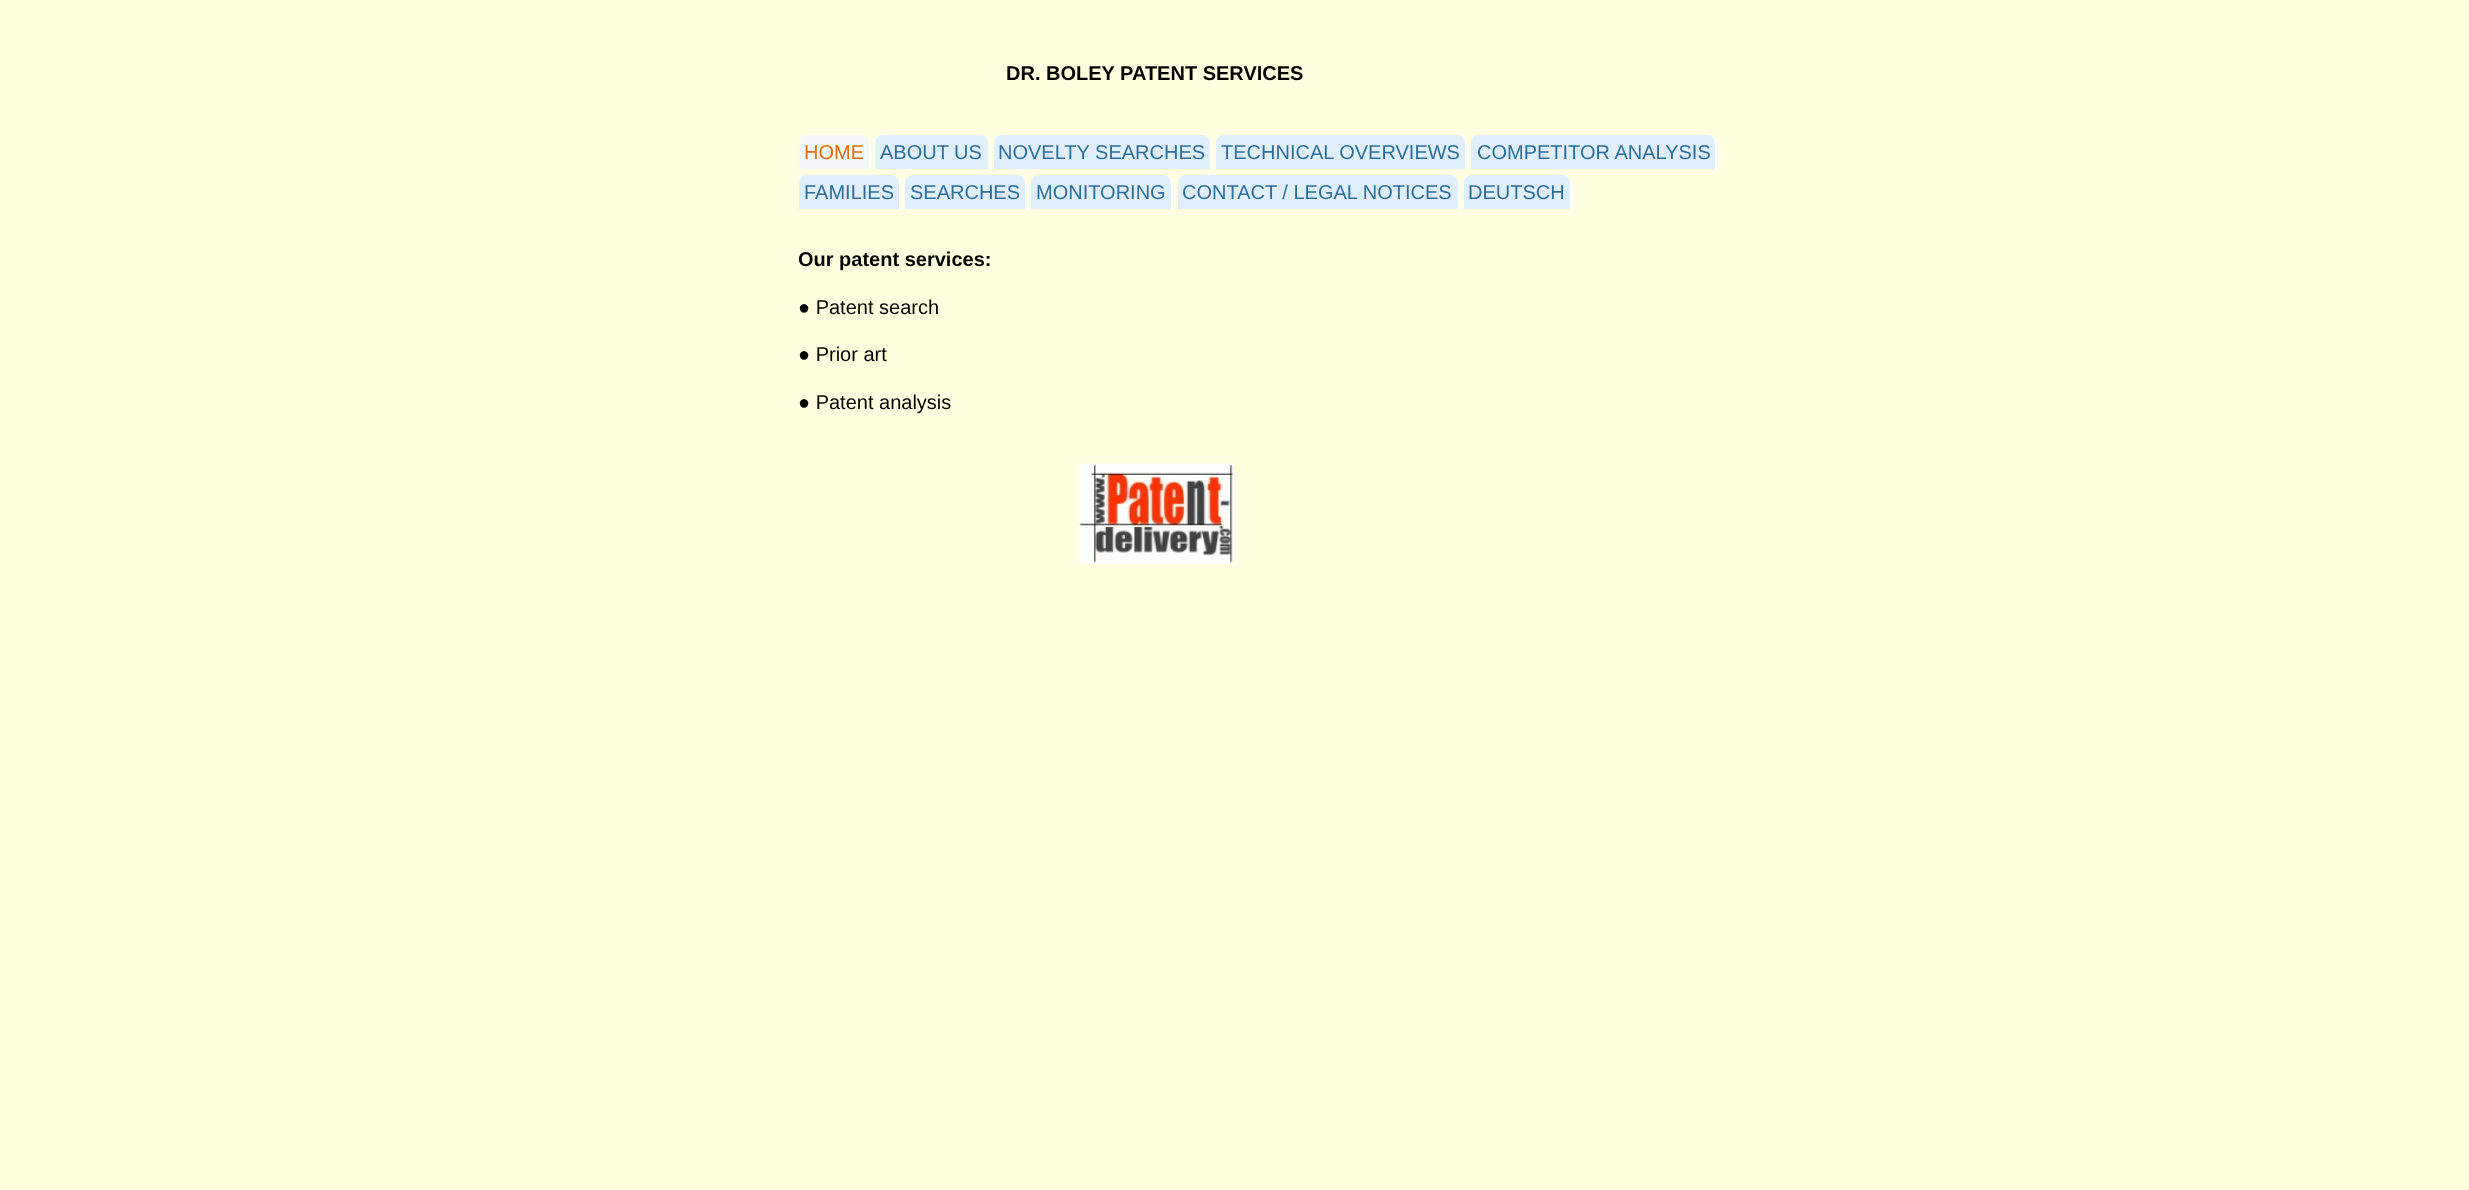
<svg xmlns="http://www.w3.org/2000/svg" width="2469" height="1190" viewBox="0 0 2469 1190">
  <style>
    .t1 { font: bold 20px Liberation Sans; fill: #000; }
    .t2 { font: 20px Liberation Sans; fill: #e17009; }
    .t3 { font: 20px Liberation Sans; fill: #2e6e9e; }
    .t4 { font: 20px Liberation Sans; fill: #000; }
  </style>
  <defs>
    <clipPath id="clip1"><rect x="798" y="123" width="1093" height="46"/></clipPath>
    <clipPath id="clip2"><rect x="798" y="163" width="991" height="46"/></clipPath>
  </defs>
  <rect width="100%" height="100%" fill="#ffffe0"/>
  <text x="1006" y="80" class="t1">DR. BOLEY PATENT SERVICES</text>
  <g clip-path="url(#clip1)">
    <rect x="878" y="138" width="112" height="37" rx="8" fill="#fff" filter="blur(2.5px)"/>
  </g>
  <path d="M883 135H980C984.5 135 988 138.5 988 143V169H875V143C875 138.5 878.5 135 883 135Z" fill="#dfeffc"/>
  <g clip-path="url(#clip1)">
    <rect x="801" y="138" width="70" height="37" rx="8" fill="#fff" filter="blur(2.5px)"/>
  </g>
  <path d="M807 135H861C865.5 135 869 138.5 869 143V169H799V143C799 138.5 802.5 135 807 135Z" fill="#f5f8f9"/>
  <text x="804" y="159" class="t2">HOME</text>
  <text x="880" y="159" class="t3">ABOUT US</text>
  <g clip-path="url(#clip1)">
    <rect x="996" y="138" width="217" height="37" rx="8" fill="#fff" filter="blur(2.5px)"/>
  </g>
  <path d="M1002 135H1202C1206.5 135 1210 138.5 1210 143V169H994V143C994 138.5 997.5 135 1002 135Z" fill="#dfeffc"/>
  <text x="998" y="159" class="t3">NOVELTY SEARCHES</text>
  <g clip-path="url(#clip1)">
    <rect x="1219" y="138" width="249" height="37" rx="8" fill="#fff" filter="blur(2.5px)"/>
  </g>
  <path d="M1224 135H1457C1461.5 135 1465 138.5 1465 143V169H1216V143C1216 138.5 1219.5 135 1224 135Z" fill="#dfeffc"/>
  <text x="1221" y="159" class="t3">TECHNICAL OVERVIEWS</text>
  <g clip-path="url(#clip1)">
    <rect x="1474" y="138" width="244" height="37" rx="8" fill="#fff" filter="blur(2.5px)"/>
  </g>
  <path d="M1479 135H1707C1711.5 135 1715 138.5 1715 143V169H1471V143C1471 138.5 1474.5 135 1479 135Z" fill="#dfeffc"/>
  <text x="1477" y="159" class="t3">COMPETITOR ANALYSIS</text>
  <g clip-path="url(#clip2)">
    <rect x="801" y="178" width="100" height="37" rx="8" fill="#fff" filter="blur(2.5px)"/>
  </g>
  <path d="M807 175H891C895.5 175 899 178.5 899 183V209H799V183C799 178.5 802.5 175 807 175Z" fill="#dfeffc"/>
  <text x="804" y="199" class="t3">FAMILIES</text>
  <g clip-path="url(#clip2)">
    <rect x="908" y="178" width="120" height="37" rx="8" fill="#fff" filter="blur(2.5px)"/>
  </g>
  <path d="M913 175H1017C1021.5 175 1025 178.5 1025 183V209H905V183C905 178.5 908.5 175 913 175Z" fill="#dfeffc"/>
  <text x="910" y="199" class="t3">SEARCHES</text>
  <g clip-path="url(#clip2)">
    <rect x="1034" y="178" width="140" height="37" rx="8" fill="#fff" filter="blur(2.5px)"/>
  </g>
  <path d="M1039 175H1163C1167.5 175 1171 178.5 1171 183V209H1031V183C1031 178.5 1034.5 175 1039 175Z" fill="#dfeffc"/>
  <text x="1036" y="199" class="t3">MONITORING</text>
  <g clip-path="url(#clip2)">
    <rect x="1180" y="178" width="280" height="37" rx="8" fill="#fff" filter="blur(2.5px)"/>
  </g>
  <path d="M1186 175H1450C1454.5 175 1458 178.5 1458 183V209H1178V183C1178 178.5 1181.5 175 1186 175Z" fill="#dfeffc"/>
  <text x="1182" y="199" class="t3">CONTACT / LEGAL NOTICES</text>
  <g clip-path="url(#clip2)">
    <rect x="1466" y="178" width="107" height="37" rx="8" fill="#fff" filter="blur(2.5px)"/>
  </g>
  <path d="M1472 175H1562C1566.5 175 1570 178.5 1570 183V209H1464V183C1464 178.5 1467.5 175 1472 175Z" fill="#dfeffc"/>
  <text x="1468" y="199" class="t3">DEUTSCH</text>
  <text x="798" y="266" class="t1">Our patent services:</text>
  <text x="798" y="314" class="t4">● Patent search</text>
  <text x="798" y="361" class="t4">● Prior art</text>
  <text x="798" y="409" class="t4">● Patent analysis</text>
  <image x="1078" y="463" width="156" height="101" href="images/1.png"/>
</svg>
